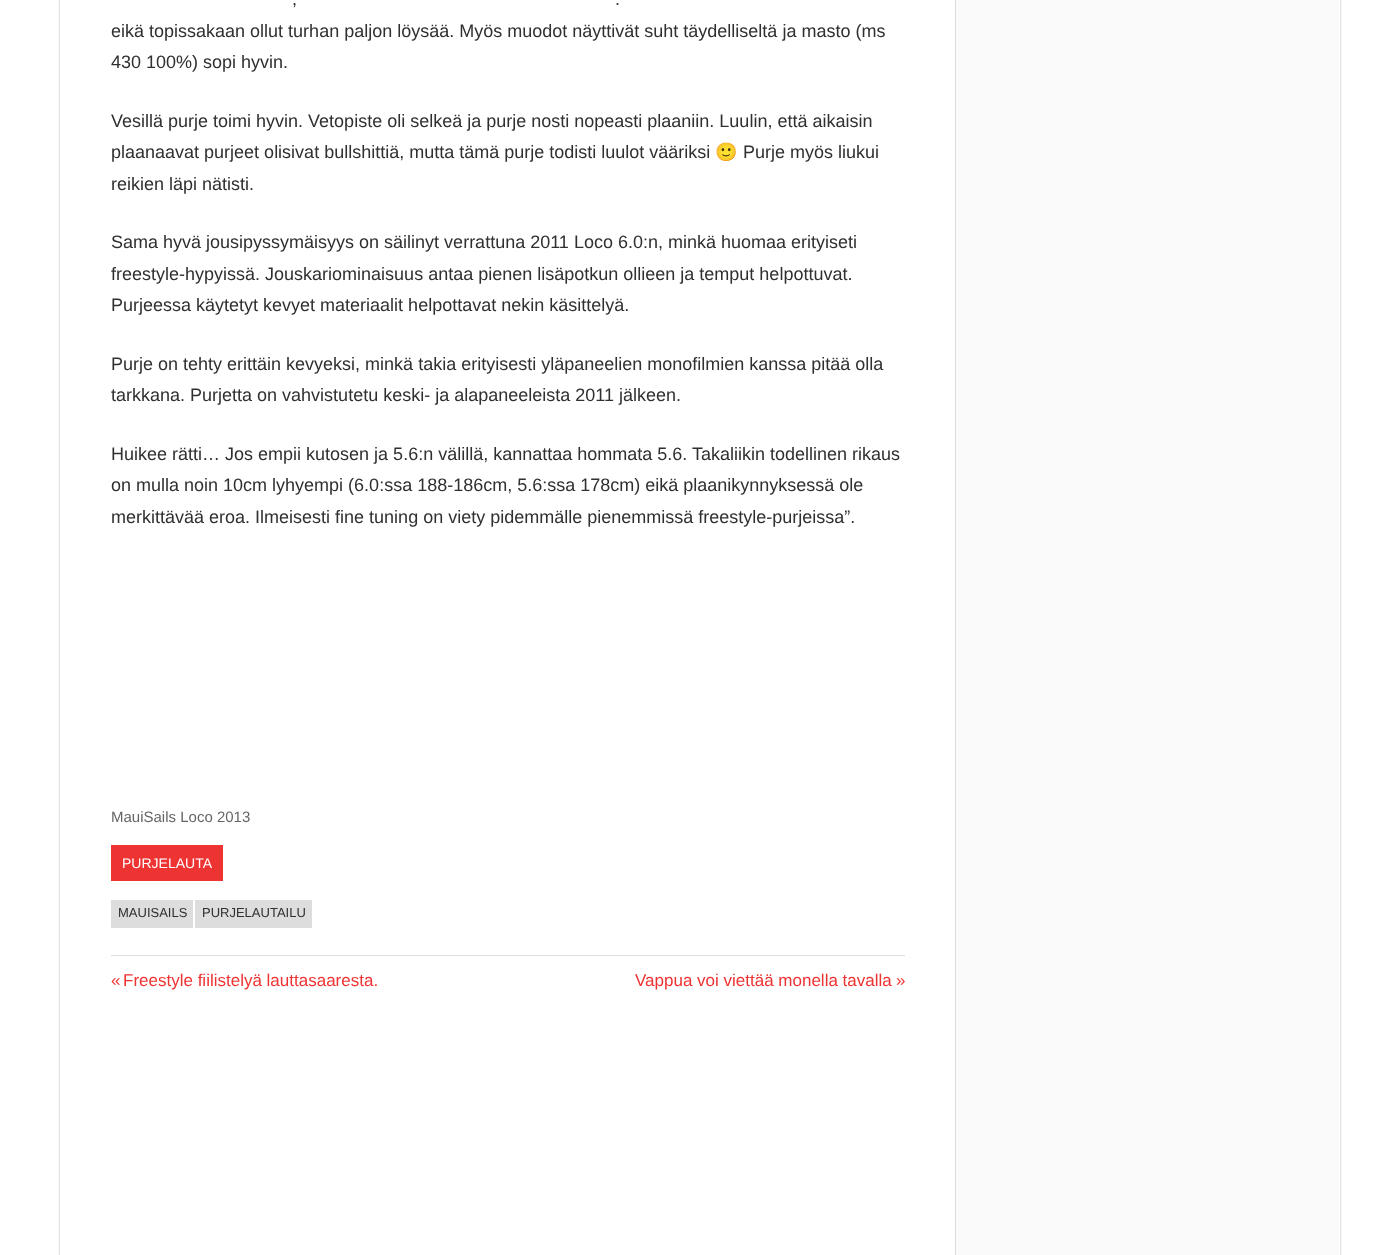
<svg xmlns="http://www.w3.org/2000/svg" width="1400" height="1255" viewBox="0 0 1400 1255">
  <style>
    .t1 { font: 18px Liberation Sans; fill: #303030; }
    .t2 { font: 18px Noto Color Emoji; fill: #303030; }
    .t3 { font: 15px Liberation Sans; fill: #666; }
    .t4 { font: 14px Liberation Sans; fill: #fff; }
    .t5 { font: 13px Liberation Sans; fill: #303030; }
    .t6 { font: 17px Liberation Sans; fill: #e33; }
  </style>
  <defs>
    <clipPath id="clip1"><path d="M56 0H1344V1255H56ZM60-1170H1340V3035H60Z" clip-rule="evenodd"/></clipPath>
  </defs>
  <rect width="100%" height="100%" fill="#fff"/>
  <g clip-path="url(#clip1)">
    <rect x="60" y="-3" width="1280" height="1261" fill="#aaa" filter="blur(1px)"/>
  </g>
  <text x="292" y="5" class="t1">,</text>
  <text x="615" y="5" class="t1">.</text>
  <text x="111" y="37" class="t1">eikä topissakaan ollut turhan paljon löysää. Myös muodot näyttivät suht täydelliseltä ja masto (ms</text>
  <text x="111" y="68" class="t1">430 100%) sopi hyvin.</text>
  <text x="111" y="127" class="t1">Vesillä purje toimi hyvin. Vetopiste oli selkeä ja purje nosti nopeasti plaaniin. Luulin, että aikaisin</text>
  <text x="111" y="158" class="t1">plaanaavat purjeet olisivat bullshittiä, mutta tämä purje todisti luulot vääriksi</text>
  <text x="715" y="158" class="t2">🙂</text>
  <text x="743" y="158" class="t1">Purje myös liukui</text>
  <text x="111" y="190" class="t1">reikien läpi nätisti.</text>
  <text x="111" y="248" class="t1">Sama hyvä jousipyssymäisyys on säilinyt verrattuna 2011 Loco 6.0:n, minkä huomaa erityiseti</text>
  <text x="111" y="280" class="t1">freestyle-hypyissä. Jouskariominaisuus antaa pienen lisäpotkun ollieen ja temput helpottuvat.</text>
  <text x="111" y="311" class="t1">Purjeessa käytetyt kevyet materiaalit helpottavat nekin käsittelyä.</text>
  <text x="111" y="370" class="t1">Purje on tehty erittäin kevyeksi, minkä takia erityisesti yläpaneelien monofilmien kanssa pitää olla</text>
  <text x="111" y="401" class="t1">tarkkana. Purjetta on vahvistutetu keski- ja alapaneeleista 2011 jälkeen.</text>
  <text x="111" y="460" class="t1">Huikee rätti… Jos empii kutosen ja 5.6:n välillä, kannattaa hommata 5.6. Takaliikin todellinen rikaus</text>
  <text x="111" y="491" class="t1">on mulla noin 10cm lyhyempi (6.0:ssa 188-186cm, 5.6:ssa 178cm) eikä plaanikynnyksessä ole</text>
  <text x="111" y="523" class="t1">merkittävää eroa. Ilmeisesti fine tuning on viety pidemmälle pienemmissä freestyle-purjeissa”.</text>
  <text x="111" y="822" class="t3">MauiSails Loco 2013</text>
  <rect x="111" y="845" width="112" height="36" fill="#e33"/>
  <text x="122" y="868" class="t4">PURJELAUTA</text>
  <rect x="111" y="900" width="82" height="28" fill="#ddd"/>
  <text x="118" y="917" class="t5">MAUISAILS</text>
  <rect x="195" y="900" width="117" height="28" fill="#ddd"/>
  <text x="202" y="917" class="t5">PURJELAUTAILU</text>
  <rect x="111" y="955" width="794" height="1" fill="#ddd"/>
  <text x="111" y="986" class="t6">«</text>
  <text x="123" y="986" class="t6">Freestyle fiilistelyä lauttasaaresta.</text>
  <text x="635" y="986" class="t6">Vappua voi viettää monella tavalla</text>
  <text x="896" y="986" class="t6">»</text>
  <rect x="956" y="0" width="383" height="1255" fill="#fafafa"/>
  <rect x="955" y="0" width="1" height="1255" fill="#ddd"/>
</svg>
